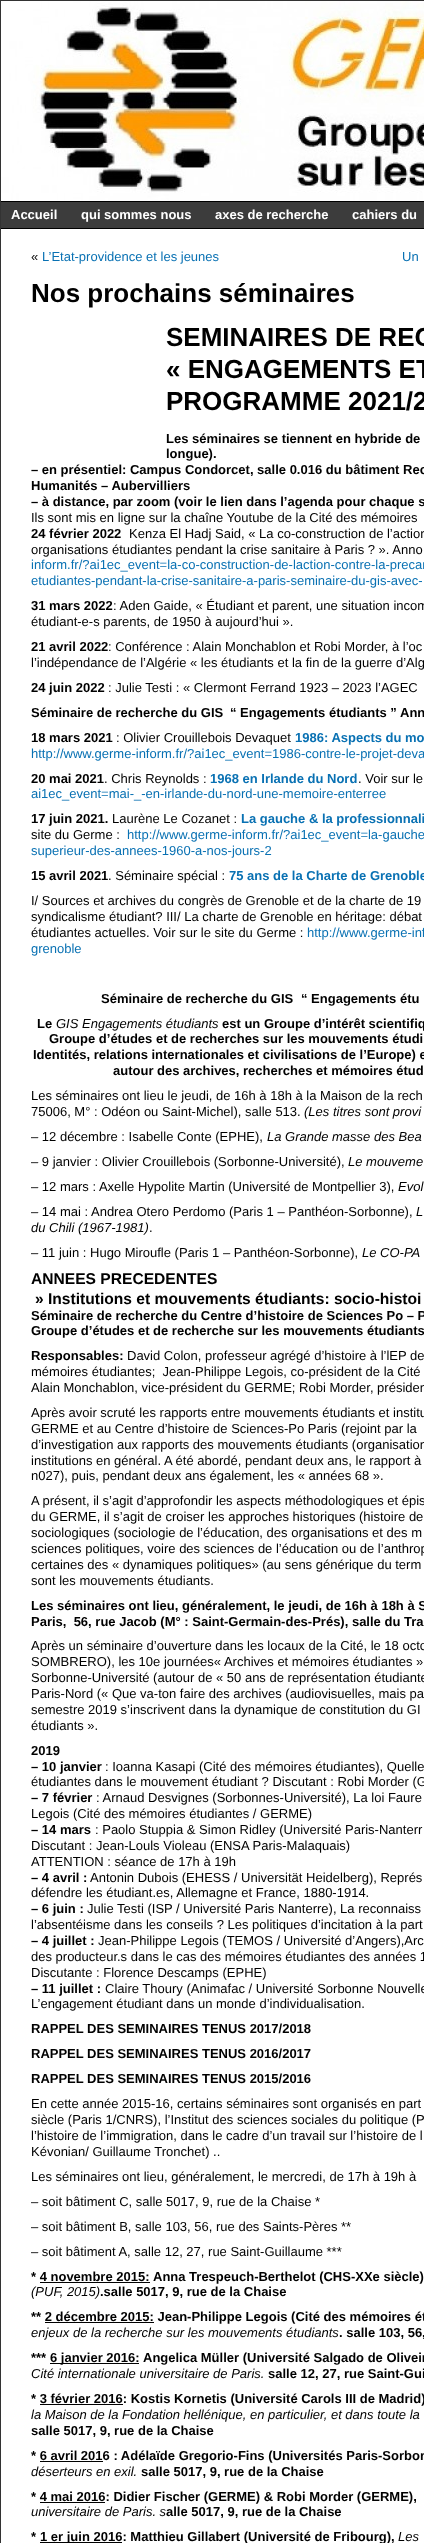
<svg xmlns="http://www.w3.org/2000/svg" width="424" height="2543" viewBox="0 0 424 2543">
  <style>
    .t1 { font: bold 13px Liberation Sans; fill: #fff; }
    .t2 { font: 13px Liberation Sans; fill: #000; }
    .t3 { font: 13px Liberation Sans; fill: #0971b3; }
    .t4 { font: bold 26px Liberation Sans; fill: #000; }
    .t5 { font: bold 13px Liberation Sans; fill: #000; }
    .t6 { font: bold 13px Liberation Sans; fill: #0971b3; }
    .t7 { font: italic 13px Liberation Sans; fill: #000; }
    .t8 { font: bold 15.6px Liberation Sans; fill: #000; }
  </style>
  <rect width="100%" height="100%" fill="#fff"/>
  <rect x="0.5" y="0.5" width="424" height="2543" fill="none" stroke="#333"/>
  <image x="1" y="1" width="423" height="200" href="images/1.png"/>
  <rect x="1" y="202" width="423" height="26" fill="#3c3c3c"/>
  <rect x="1" y="201" width="423" height="1" fill="#000"/>
  <rect x="1" y="228" width="423" height="1" fill="#000"/>
  <text x="11" y="219" class="t1">Accueil</text>
  <text x="81" y="219" class="t1">qui sommes nous</text>
  <text x="215" y="219" class="t1">axes de recherche</text>
  <text x="352" y="219" class="t1">cahiers du</text>
  <text x="31" y="261" class="t2">«</text>
  <text x="42" y="261" class="t3">L’Etat-providence et les jeunes</text>
  <text x="402" y="261" class="t3">Un</text>
  <text x="31" y="302" class="t4">Nos prochains séminaires</text>
  <text x="166" y="346" class="t4">SEMINAIRES DE REC</text>
  <text x="166" y="378" class="t4">« ENGAGEMENTS ET</text>
  <text x="166" y="410" class="t4">PROGRAMME 2021/2</text>
  <text x="166" y="443" class="t5">Les séminaires se tiennent en hybride de</text>
  <text x="166" y="458" class="t5">longue).</text>
  <text x="31" y="474" class="t5">– en présentiel: Campus Condorcet, salle 0.016 du bâtiment Rec</text>
  <text x="31" y="490" class="t5">Humanités – Aubervilliers</text>
  <text x="31" y="506" class="t5">– à distance, par zoom (voir le lien dans l’agenda pour chaque s</text>
  <text x="31" y="522" class="t2">Ils sont mis en ligne sur la chaîne Youtube de la Cité des mémoires</text>
  <text x="31" y="538" class="t5">24 février 2022</text>
  <text x="129" y="538" class="t2">Kenza El Hadj Said, « La co-construction de l’action</text>
  <text x="31" y="554" class="t2">organisations étudiantes pendant la crise sanitaire à Paris ? ». Anno</text>
  <text x="31" y="569" class="t3">inform.fr/?ai1ec_event=la-co-construction-de-laction-contre-la-precar</text>
  <text x="31" y="585" class="t3">etudiantes-pendant-la-crise-sanitaire-a-paris-seminaire-du-gis-avec-</text>
  <text x="31" y="610" class="t5">31 mars 2022</text>
  <text x="113" y="610" class="t2">: Aden Gaide, « Étudiant et parent, une situation incom</text>
  <text x="31" y="626" class="t2">étudiant-e-s parents, de 1950 à aujourd’hui ».</text>
  <text x="31" y="651" class="t5">21 avril 2022</text>
  <text x="108" y="651" class="t2">: Conférence : Alain Monchablon et Robi Morder, à l’oc</text>
  <text x="31" y="667" class="t2">l’indépendance de l’Algérie « les étudiants et la fin de la guerre d’Alg</text>
  <text x="31" y="692" class="t5">24 juin 2022</text>
  <text x="108" y="692" class="t2">: Julie Testi : « Clermont Ferrand 1923 – 2023 l’AGEC</text>
  <text x="31" y="717" class="t5">Séminaire de recherche du GIS</text>
  <text x="230" y="717" class="t5">“ Engagements étudiants ”</text>
  <text x="400" y="717" class="t5">Ann</text>
  <text x="31" y="742" class="t5">18 mars 2021</text>
  <text x="116" y="742" class="t2">: Olivier Crouillebois Devaquet</text>
  <text x="295" y="742" class="t6">1986: Aspects du mo</text>
  <text x="31" y="758" class="t3">http://www.germe-inform.fr/?ai1ec_event=1986-contre-le-projet-deva</text>
  <text x="31" y="783" class="t5">20 mai 2021</text>
  <text x="104" y="783" class="t2">. Chris Reynolds :</text>
  <text x="210" y="783" class="t6">1968 en Irlande du Nord</text>
  <text x="358" y="783" class="t2">. Voir sur le</text>
  <text x="31" y="798" class="t3">ai1ec_event=mai-_-en-irlande-du-nord-une-memoire-enterree</text>
  <text x="31" y="823" class="t5">17 juin 2021.</text>
  <text x="112" y="823" class="t2">Laurène Le Cozanet :</text>
  <text x="241" y="823" class="t6">La gauche &amp; la professionnali</text>
  <text x="31" y="839" class="t2">site du Germe :</text>
  <text x="127" y="839" class="t3">http://www.germe-inform.fr/?ai1ec_event=la-gauche</text>
  <text x="31" y="855" class="t3">superieur-des-annees-1960-a-nos-jours-2</text>
  <text x="31" y="880" class="t5">15 avril 2021</text>
  <text x="108" y="880" class="t2">. Séminaire spécial :</text>
  <text x="229" y="880" class="t6">75 ans de la Charte de Grenoble</text>
  <text x="31" y="905" class="t2">I/ Sources et archives du congrès de Grenoble et de la charte de 19</text>
  <text x="31" y="921" class="t2">syndicalisme étudiant? III/ La charte de Grenoble en héritage: débat</text>
  <text x="31" y="937" class="t2">étudiantes actuelles. Voir sur le site du Germe :</text>
  <text x="307" y="937" class="t3">http://www.germe-inf</text>
  <text x="31" y="953" class="t3">grenoble</text>
  <text x="101" y="1003" class="t5">Séminaire de recherche du GIS</text>
  <text x="301" y="1003" class="t5">“ Engagements étu</text>
  <text x="37" y="1028" class="t5">Le</text>
  <text x="56" y="1028" class="t7">GIS Engagements étudiants</text>
  <text x="222" y="1028" class="t5">est un Groupe d’intérêt scientifiq</text>
  <text x="49" y="1043" class="t5">Groupe d’études et de recherches sur les mouvements étudi</text>
  <text x="33" y="1059" class="t5">Identités, relations internationales et civilisations de l’Europe) e</text>
  <text x="113" y="1075" class="t5">autour des archives, recherches et mémoires étud</text>
  <text x="31" y="1100" class="t2">Les séminaires ont lieu le jeudi, de 16h à 18h à la Maison de la rech</text>
  <text x="31" y="1116" class="t2">75006, M° : Odéon ou Saint-Michel), salle 513.</text>
  <text x="304" y="1116" class="t7">(Les titres sont provi</text>
  <text x="31" y="1141" class="t2">– 12 décembre : Isabelle Conte (EPHE),</text>
  <text x="267" y="1141" class="t7">La Grande masse des Bea</text>
  <text x="31" y="1166" class="t2">– 9 janvier : Olivier Crouillebois (Sorbonne-Université),</text>
  <text x="348" y="1166" class="t7">Le mouveme</text>
  <text x="31" y="1191" class="t2">– 12 mars : Axelle Hypolite Martin (Université de Montpellier 3),</text>
  <text x="398" y="1191" class="t7">Evol</text>
  <text x="31" y="1216" class="t2">– 14 mai : Andrea Otero Perdomo (Paris 1 – Panthéon-Sorbonne),</text>
  <text x="416" y="1216" class="t7">L</text>
  <text x="31" y="1232" class="t7">du Chili (1967-1981)</text>
  <text x="149" y="1232" class="t2">.</text>
  <text x="31" y="1257" class="t2">– 11 juin : Hugo Miroufle (Paris 1 – Panthéon-Sorbonne),</text>
  <text x="362" y="1257" class="t7">Le CO-PA</text>
  <text x="31" y="1284" class="t8">ANNEES PRECEDENTES</text>
  <text x="35" y="1304" class="t8">» Institutions et mouvements étudiants: socio-histoi</text>
  <text x="31" y="1320" class="t5">Séminaire de recherche du Centre d’histoire de Sciences Po – P</text>
  <text x="31" y="1335" class="t5">Groupe d’études et de recherche sur les mouvements étudiants</text>
  <text x="31" y="1360" class="t5">Responsables:</text>
  <text x="127" y="1360" class="t2">David Colon, professeur agrégé d’histoire à l’lEP de</text>
  <text x="31" y="1376" class="t2" xml:space="preserve">mémoires étudiantes;  Jean-Philippe Legois, co-président de la Cité</text>
  <text x="31" y="1392" class="t2">Alain Monchablon, vice-président du GERME; Robi Morder, présiden</text>
  <text x="31" y="1417" class="t2">Après avoir scruté les rapports entre mouvements étudiants et institu</text>
  <text x="31" y="1433" class="t2">GERME et au Centre d’histoire de Sciences-Po Paris (rejoint par la</text>
  <text x="31" y="1449" class="t2">d’investigation aux rapports des mouvements étudiants (organisation</text>
  <text x="31" y="1465" class="t2">institutions en général. A été abordé, pendant deux ans, le rapport à</text>
  <text x="31" y="1480" class="t2">n027), puis, pendant deux ans également, les « années 68 ».</text>
  <text x="31" y="1505" class="t2">A présent, il s’agit d’approfondir les aspects méthodologiques et épis</text>
  <text x="31" y="1521" class="t2">du GERME, il s’agit de croiser les approches historiques (histoire de</text>
  <text x="31" y="1537" class="t2">sociologiques (sociologie de l’éducation, des organisations et des m</text>
  <text x="31" y="1553" class="t2">sciences politiques, voire des sciences de l’éducation ou de l’anthrop</text>
  <text x="31" y="1569" class="t2">certaines des « dynamiques politiques» (au sens générique du term</text>
  <text x="31" y="1585" class="t2">sont les mouvements étudiants.</text>
  <text x="31" y="1610" class="t5">Les séminaires ont lieu, généralement, le jeudi, de 16h à 18h à S</text>
  <text x="31" y="1626" class="t5" xml:space="preserve">Paris,  56, rue Jacob (M° : Saint-Germain-des-Prés), salle du Tra</text>
  <text x="31" y="1650" class="t2">Après un séminaire d’ouverture dans les locaux de la Cité, le 18 octo</text>
  <text x="31" y="1666" class="t2">SOMBRERO), les 10e journées« Archives et mémoires étudiantes »</text>
  <text x="31" y="1682" class="t2">Sorbonne-Université (autour de « 50 ans de représentation étudiante</text>
  <text x="31" y="1698" class="t2">Paris-Nord (« Que va-ton faire des archives (audiovisuelles, mais pa</text>
  <text x="31" y="1714" class="t2">semestre 2019 s’inscrivent dans la dynamique de constitution du GI</text>
  <text x="31" y="1730" class="t2">étudiants ».</text>
  <text x="31" y="1755" class="t5">2019</text>
  <text x="31" y="1771" class="t5">– 10 janvier</text>
  <text x="105" y="1771" class="t2">: Ioanna Kasapi (Cité des mémoires étudiantes), Quelle</text>
  <text x="31" y="1786" class="t2">étudiantes dans le mouvement étudiant ? Discutant : Robi Morder (G</text>
  <text x="31" y="1802" class="t5">– 7 février</text>
  <text x="96" y="1802" class="t2">: Arnaud Desvignes (Sorbonnes-Université), La loi Faure</text>
  <text x="31" y="1818" class="t2">Legois (Cité des mémoires étudiantes / GERME)</text>
  <text x="31" y="1834" class="t5">– 14 mars</text>
  <text x="95" y="1834" class="t2">: Paolo Stuppia &amp; Simon Ridley (Université Paris-Nanterr</text>
  <text x="31" y="1850" class="t2">Discutant : Jean-Louls Violeau (ENSA Paris-Malaquais)</text>
  <text x="31" y="1866" class="t2">ATTENTION : séance de 17h à 19h</text>
  <text x="31" y="1882" class="t5">– 4 avril :</text>
  <text x="90" y="1882" class="t2">Antonin Dubois (EHESS / Universität Heidelberg), Représ</text>
  <text x="31" y="1897" class="t2">défendre les étudiant.es, Allemagne et France, 1880-1914.</text>
  <text x="31" y="1913" class="t5">– 6 juin :</text>
  <text x="87" y="1913" class="t2">Julie Testi (ISP / Université Paris Nanterre), La reconnaiss</text>
  <text x="31" y="1929" class="t2">l’absentéisme dans les conseils ? Les politiques d’incitation à la part</text>
  <text x="31" y="1945" class="t5">– 4 juillet :</text>
  <text x="98" y="1945" class="t2">Jean-Philippe Legois (TEMOS / Université d’Angers),Arc</text>
  <text x="31" y="1961" class="t2">des producteur.s dans le cas des mémoires étudiantes des années 1</text>
  <text x="31" y="1977" class="t2">Discutante : Florence Descamps (EPHE)</text>
  <text x="31" y="1993" class="t5">– 11 juillet :</text>
  <text x="105" y="1993" class="t2">Claire Thoury (Animafac / Université Sorbonne Nouvelle</text>
  <text x="31" y="2008" class="t2">L’engagement étudiant dans un monde d’individualisation.</text>
  <text x="31" y="2033" class="t5">RAPPEL DES SEMINAIRES TENUS 2017/2018</text>
  <text x="31" y="2058" class="t5">RAPPEL DES SEMINAIRES TENUS 2016/2017</text>
  <text x="31" y="2083" class="t5">RAPPEL DES SEMINAIRES TENUS 2015/2016</text>
  <text x="31" y="2108" class="t2">En cette année 2015-16, certains séminaires sont organisés en part</text>
  <text x="31" y="2124" class="t2">siècle (Paris 1/CNRS), l’Institut des sciences sociales du politique (P</text>
  <text x="31" y="2140" class="t2">l’histoire de l’immigration, dans le cadre d’un travail sur l’histoire de l</text>
  <text x="31" y="2156" class="t2">Kévonian/ Guillaume Tronchet) ..</text>
  <text x="31" y="2181" class="t2">Les séminaires ont lieu, généralement, le mercredi, de 17h à 19h à</text>
  <text x="31" y="2206" class="t2">– soit bâtiment C, salle 5017, 9, rue de la Chaise *</text>
  <text x="31" y="2231" class="t2">– soit bâtiment B, salle 103, 56, rue des Saints-Pères **</text>
  <text x="31" y="2256" class="t2">– soit bâtiment A, salle 12, 27, rue Saint-Guillaume ***</text>
  <text x="31" y="2281" class="t5">* 4 novembre 2015:</text>
  <rect x="40" y="2282" width="110" height="1" fill="#000"/>
  <text x="153" y="2281" class="t5">Anna Trespeuch-Berthelot (CHS-XXe siècle)</text>
  <text x="31" y="2296" class="t7">(PUF, 2015)</text>
  <text x="100" y="2296" class="t5">.salle 5017, 9, rue de la Chaise</text>
  <text x="31" y="2321" class="t5">** 2 décembre 2015: Jean-Philippe Legois (Cité des mémoires ét</text>
  <rect x="45" y="2322" width="109" height="1" fill="#000"/>
  <text x="31" y="2337" class="t7">enjeux de la recherche sur les mouvements étudiants</text>
  <text x="339" y="2337" class="t5">. salle 103, 56,</text>
  <text x="31" y="2362" class="t5">***</text>
  <rect x="50" y="2363" width="89" height="1" fill="#000"/>
  <text x="50" y="2362" class="t5">6 janvier 2016:</text>
  <text x="143" y="2362" class="t5">Angelica Müller (Université Salgado de Oliveir</text>
  <text x="31" y="2378" class="t7">Cité internationale universitaire de Paris.</text>
  <text x="268" y="2378" class="t5">salle 12, 27, rue Saint-Gui</text>
  <text x="31" y="2403" class="t5">* 3 février 2016: Kostis Kornetis (Université Carols III de Madrid)</text>
  <rect x="40" y="2404" width="83" height="1" fill="#000"/>
  <text x="31" y="2419" class="t7">la Maison de la Fondation hellénique, en particulier, et dans toute la</text>
  <text x="31" y="2435" class="t5">salle 5017, 9, rue de la Chaise</text>
  <text x="31" y="2460" class="t5">* 6 avril 2016 : Adélaïde Gregorio-Fins (Universités Paris-Sorbon</text>
  <rect x="40" y="2461" width="63" height="1" fill="#000"/>
  <text x="31" y="2476" class="t7">déserteurs en exil.</text>
  <text x="141" y="2476" class="t5">salle 5017, 9, rue de la Chaise</text>
  <text x="31" y="2501" class="t5">* 4 mai 2016: Didier Fischer (GERME) &amp; Robi Morder (GERME),</text>
  <rect x="40" y="2502" width="65" height="1" fill="#000"/>
  <text x="31" y="2516" class="t7">universitaire de Paris. s</text>
  <text x="166" y="2516" class="t5">alle 5017, 9, rue de la Chaise</text>
  <text x="31" y="2541" class="t5">*</text>
  <rect x="40" y="2542" width="82" height="1" fill="#000"/>
  <text x="40" y="2541" class="t5">1 er juin 2016: Matthieu Gillabert (Université de Fribourg),</text>
  <text x="398" y="2541" class="t7">Les</text>
</svg>
